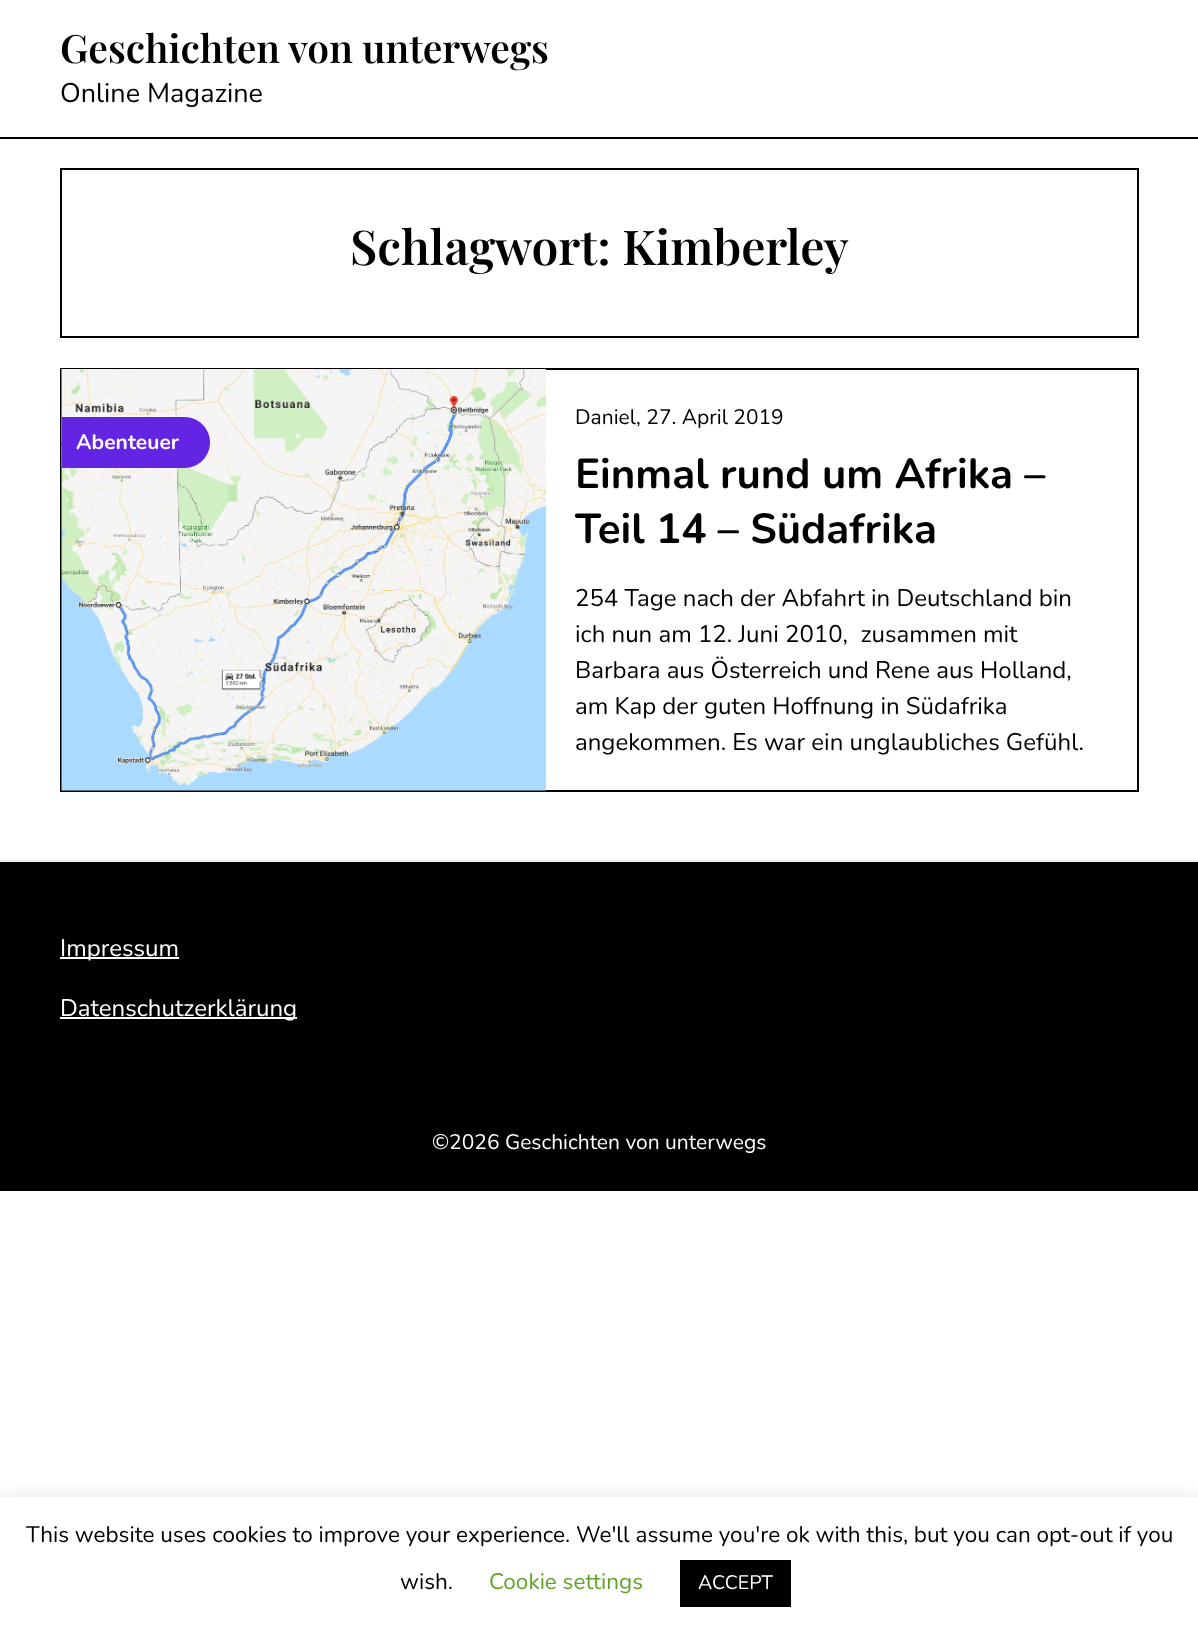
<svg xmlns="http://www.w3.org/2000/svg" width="1198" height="1631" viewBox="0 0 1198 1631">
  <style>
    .t1 { font: 600 39px Playfair Display; fill: #000; }
    .t2 { font: 27px Nunito; fill: #000; }
    .t3 { font: 600 48px Playfair Display; fill: #000; }
    .t4 { font: bold 21px Nunito; fill: #fff; }
    .t5 { font: 21px Nunito; fill: #000; }
    .t6 { font: bold 42px Nunito; fill: #000; }
    .t7 { font: 24px Nunito; fill: #000; }
    .t8 { font: 24px Nunito; fill: #fff; }
    .t9 { font: 21px Nunito; fill: #fff; }
    .t10 { font: 22.5px Nunito; fill: #000; }
    .t11 { font: 22.5px Nunito; fill: #62a329; }
    .t12 { font: 19.5px Nunito; fill: #fff; }
  </style>
  <defs>
    <clipPath id="clip1"><rect x="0" y="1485" width="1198" height="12"/></clipPath>
  </defs>
  <rect width="100%" height="100%" fill="#fff"/>
  <rect x="0" y="137" width="1198" height="2" fill="#000"/>
  <text x="60" y="63" class="t1">Geschichten von unterwegs</text>
  <text x="60" y="102" class="t2">Online Magazine</text>
  <rect x="61" y="169" width="1077" height="168" fill="none" stroke="#000" stroke-width="2"/>
  <text x="350" y="265" class="t3">Schlagwort: Kimberley</text>
  <rect x="61" y="369" width="1077" height="422" fill="none" stroke="#000" stroke-width="2"/>
  <image x="61" y="369" width="485" height="422" href="images/1.png"/>
  <path d="M62 417H184.5C198.5 417 210 428.5 210 442.5C210 456.5 198.5 468 184.5 468H62Z" fill="#6324e4"/>
  <text x="76" y="449" class="t4">Abenteuer</text>
  <text x="575" y="424" class="t5">Daniel, 27. April 2019</text>
  <text x="575" y="488" class="t6">Einmal rund um Afrika –</text>
  <text x="575" y="543" class="t6">Teil 14 – Südafrika</text>
  <text x="575" y="606" class="t7">254 Tage nach der Abfahrt in Deutschland bin</text>
  <text x="575" y="642" class="t7" xml:space="preserve">ich nun am 12. Juni 2010,  zusammen mit</text>
  <text x="575" y="678" class="t7">Barbara aus Österreich und Rene aus Holland,</text>
  <text x="575" y="714" class="t7">am Kap der guten Hoffnung in Südafrika</text>
  <text x="575" y="750" class="t7">angekommen. Es war ein unglaubliches Gefühl.</text>
  <rect x="0" y="862" width="1198" height="329" fill="#000"/>
  <rect x="0" y="860" width="1198" height="2" fill="#efefef"/>
  <rect x="60" y="957" width="119" height="2" fill="#fff"/>
  <text x="60" y="956" class="t8">Impressum</text>
  <rect x="60" y="1017" width="237" height="2" fill="#fff"/>
  <text x="60" y="1016" class="t8">Datenschutzerklärung</text>
  <text x="432" y="1149" class="t9">©2026 Geschichten von unterwegs</text>
  <g clip-path="url(#clip1)">
    <rect x="0" y="1496" width="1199" height="135" fill="#acabab4d" filter="blur(7.5px)"/>
  </g>
  <text x="26" y="1542" class="t10">This website uses cookies to improve your experience. We'll assume you're ok with this, but you can opt-out if you</text>
  <text x="400" y="1589" class="t10">wish.</text>
  <text x="489" y="1589" class="t11">Cookie settings</text>
  <rect x="680" y="1560" width="111" height="47" fill="#000"/>
  <text x="698" y="1589" class="t12">ACCEPT</text>
</svg>
